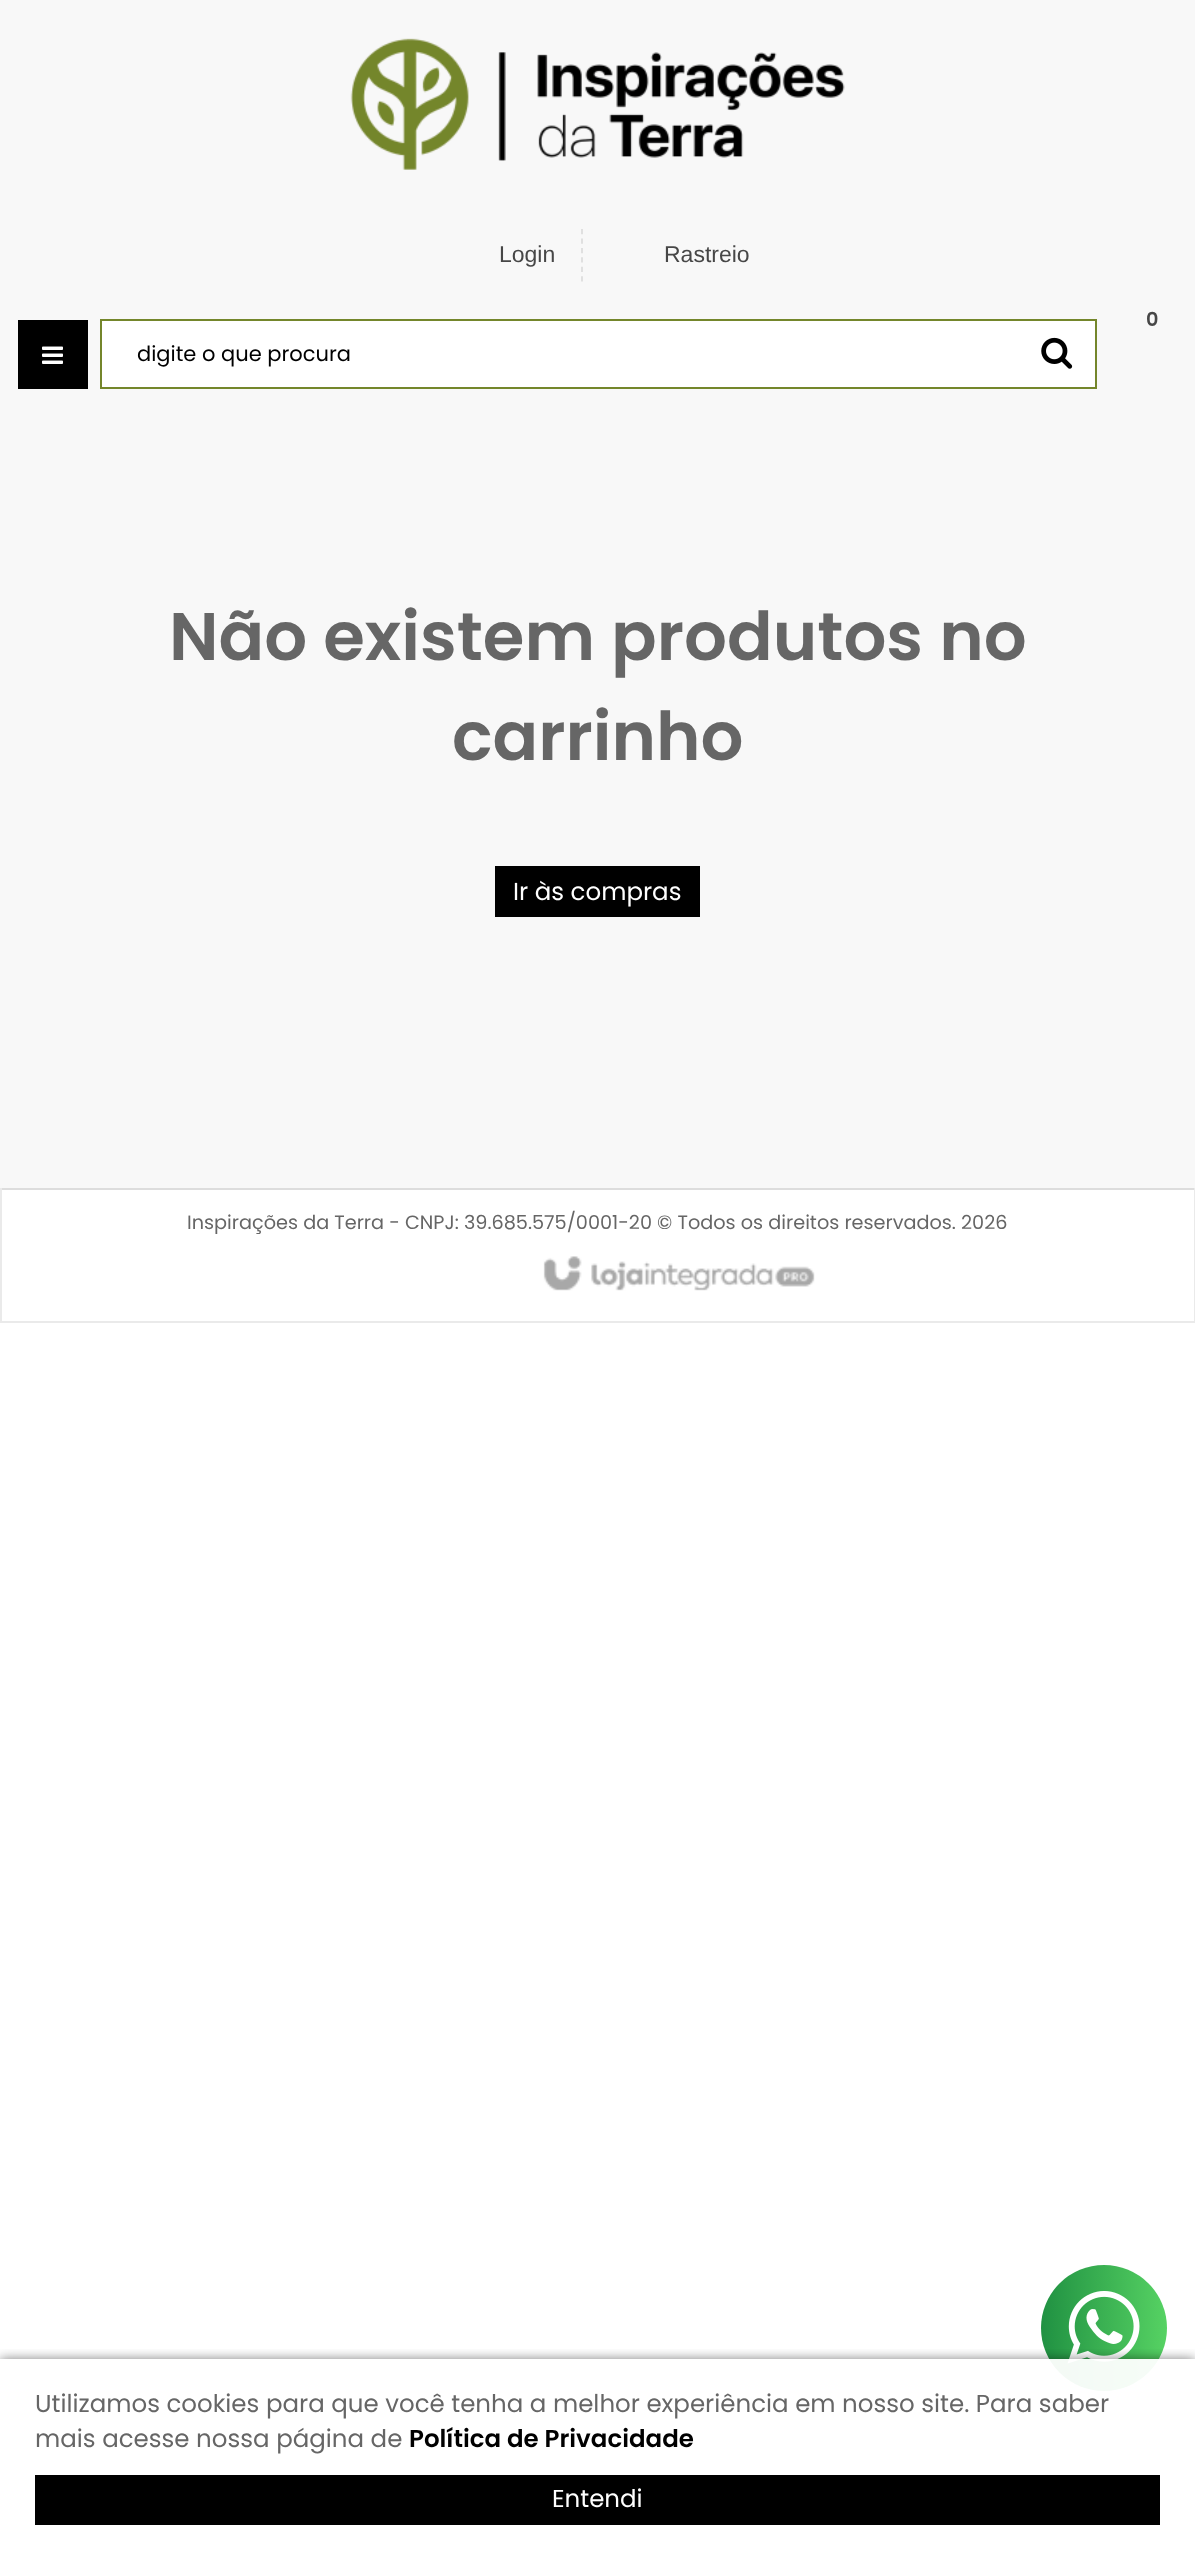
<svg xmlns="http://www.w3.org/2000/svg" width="1195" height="2550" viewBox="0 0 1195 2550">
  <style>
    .t1 { font: 23px Liberation Sans; fill: #474747; }
    .t2 { font: 600 19.25px Poppins; fill: #474747; }
    .t3 { font: 21px Poppins; fill: #000; }
    .t4 { font: 600 67.4px Poppins; fill: #666; }
    .t5 { font: 24.5px Poppins; fill: #fff; }
    .t6 { font: 19.25px Poppins; fill: #666; }
    .t7 { font: 24.5px Poppins; fill: #666; }
    .t8 { font: 600 24.5px Poppins; fill: #000; }
  </style>
  <defs>
    <linearGradient id="g1" gradientUnits="userSpaceOnUse" x1="1041" y1="2328" x2="1167" y2="2328"><stop offset="0" stop-color="#209142"/><stop offset="1" stop-color="#56d263"/></linearGradient>
    <clipPath id="clip1"><rect x="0" y="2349" width="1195" height="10"/></clipPath>
  </defs>
  <rect width="100%" height="100%" fill="#fff"/>
  <rect x="0" y="0" width="1195" height="1188" fill="#f8f8f8"/>
  <image x="350" y="38" width="495" height="132" href="images/1.png"/>
  <text x="499" y="262" class="t1">Login</text>
  <path d="M582 229V282" fill="none" stroke="#ddd" stroke-width="1.8" stroke-dasharray="5.25 4.2"/>
  <text x="664" y="262" class="t1">Rastreio</text>
  <text x="1146" y="326" class="t2">0</text>
  <rect x="18" y="320" width="70" height="69" fill="#000"/>
  <image x="42" y="346" width="21" height="18" href="images/2.png"/>
  <rect x="101" y="320" width="995" height="68" fill="#fff" stroke="#74862b" stroke-width="2"/>
  <text x="137" y="361" class="t3">digite o que procura</text>
  <image x="1041" y="337" width="32" height="32" href="images/3.png"/>
  <text x="169" y="660" class="t4">Não existem produtos no</text>
  <text x="452" y="760" class="t4">carrinho</text>
  <rect x="495" y="866" width="205" height="51" fill="#000"/>
  <text x="513" y="900" class="t5">Ir às compras</text>
  <rect x="0" y="1188" width="1195" height="2" fill="#ddd"/>
  <rect x="1194" y="1188" width="1" height="135" fill="#eaeaea"/>
  <rect x="0" y="1321" width="1195" height="2" fill="#eaeaea"/>
  <rect x="0" y="1188" width="2" height="135" fill="#eaeaea"/>
  <text x="187" y="1229" class="t6">Inspirações da Terra - CNPJ: 39.685.575/0001-20 © Todos os direitos reservados. 2026</text>
  <image x="543" y="1256" width="272" height="35" href="images/4.png"/>
  <circle cx="1104" cy="2328" r="63" fill="url(#g1)"/>
  <image x="1067" y="2291" width="73" height="73" href="images/5.png"/>
  <g clip-path="url(#clip1)">
    <rect x="0" y="2359" width="1195" height="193" fill="#00000080" filter="blur(6px)"/>
  </g>
  <rect x="1049" y="2359" width="110" height="32" fill="#fffffff2"/>
  <text x="35" y="2412" class="t7">Utilizamos cookies para que você tenha a melhor experiência em nosso site. Para saber</text>
  <text x="35" y="2447" class="t7">mais acesse nossa página de</text>
  <text x="409" y="2447" class="t8">Política de Privacidade</text>
  <rect x="35" y="2475" width="1125" height="50" fill="#000"/>
  <text x="552" y="2507" class="t5">Entendi</text>
</svg>
